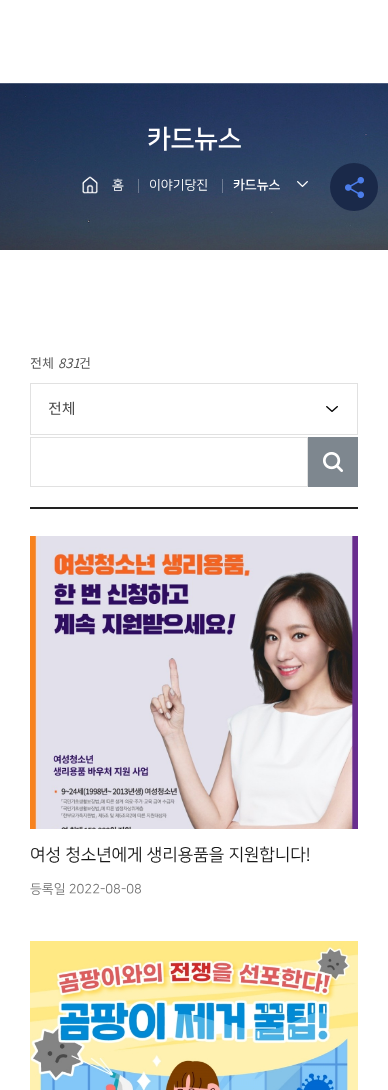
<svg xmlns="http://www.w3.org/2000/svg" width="388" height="1090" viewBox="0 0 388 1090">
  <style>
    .t1 { font: bold 26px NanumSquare; fill: #fff; }
    .t2 { font: 13px NanumSquare; fill: #fff; }
    .t3 { font: bold 13px NanumSquare; fill: #fff; }
    .t4 { font: 13px Noto Sans KR; fill: #585858; }
    .t5 { font: italic 13px Noto Sans KR; fill: #585858; }
    .t6 { font: 15px Noto Sans KR; fill: #484848; }
    .t7 { font: 17px NanumSquare; fill: #191919; }
    .t8 { font: 13px NanumSquare; fill: #707070; }
  </style>
  <rect width="100%" height="100%" fill="#fff"/>
  <image x="0" y="83" width="388" height="167" href="images/1.png"/>
  <rect x="0" y="83" width="388" height="1" fill="#ffffff33"/>
  <text x="147" y="147" class="t1">카드뉴스</text>
  <image x="82" y="176" width="16" height="18" href="images/2.png"/>
  <text x="112" y="189" class="t2">홈</text>
  <rect x="138" y="179" width="1" height="14" fill="#ffffff4d"/>
  <text x="149" y="189" class="t2">이야기당진</text>
  <rect x="222" y="179" width="1" height="14" fill="#ffffff4d"/>
  <text x="233" y="189" class="t3">카드뉴스</text>
  <image x="297" y="181" width="11" height="6" href="images/3.png"/>
  <circle cx="354" cy="187" r="24" fill="#1a2949"/>
  <image x="345" y="177" width="19" height="21" href="images/4.png"/>
  <text x="30" y="368" class="t4">전체</text>
  <text x="58" y="368" class="t5">831</text>
  <text x="79" y="368" class="t4">건</text>
  <rect x="30.5" y="383.5" width="327" height="51" fill="none" stroke="#e1e1e1"/>
  <text x="48" y="414" class="t6">전체</text>
  <image x="326" y="406" width="12" height="6" href="images/5.png"/>
  <rect x="30.5" y="437.5" width="277" height="49" fill="none" stroke="#e1e1e1"/>
  <image x="308" y="437" width="50" height="50" href="images/6.png"/>
  <rect x="30" y="507" width="328" height="2" fill="#222"/>
  <image x="30" y="536" width="328" height="293" href="images/7.png"/>
  <text x="30" y="860" class="t7">여성 청소년에게 생리용품을 지원합니다!</text>
  <text x="30" y="893" class="t8">등록일 2022-08-08</text>
  <image x="30" y="941" width="328" height="149" href="images/8.png"/>
</svg>
